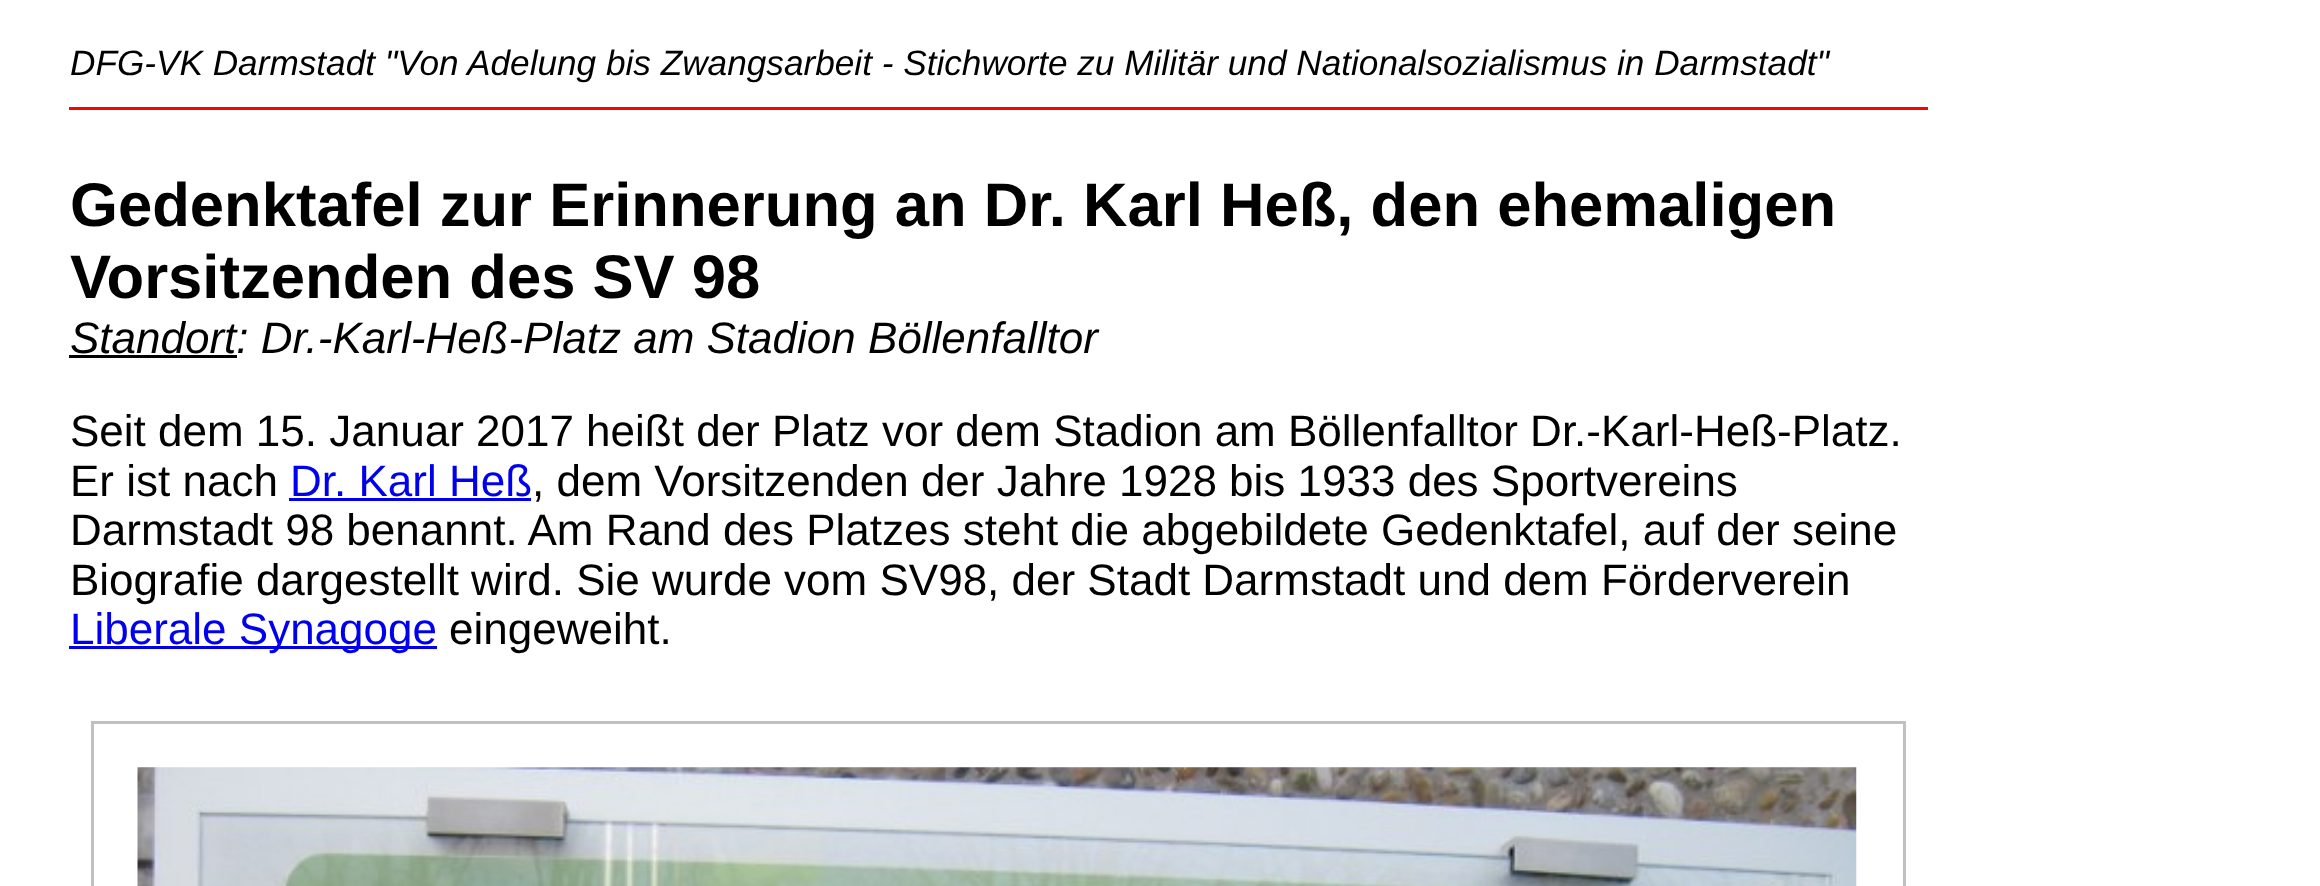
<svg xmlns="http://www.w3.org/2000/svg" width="2320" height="886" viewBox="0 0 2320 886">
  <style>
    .t1 { font: italic 35.2px Liberation Sans; fill: #000; }
    .t2 { font: bold 61.6px Liberation Sans; fill: #000; }
    .t3 { font: italic 44px Liberation Sans; fill: #000; }
    .t4 { font: 44px Liberation Sans; fill: #000; }
    .t5 { font: 44px Liberation Sans; fill: #00e; }
  </style>
  <rect width="100%" height="100%" fill="#fff"/>
  <text x="70" y="75" class="t1">DFG-VK Darmstadt "Von Adelung bis Zwangsarbeit - Stichworte zu Militär und Nationalsozialismus in Darmstadt"</text>
  <rect x="69" y="107" width="1859" height="3" fill="#f00"/>
  <text x="70" y="226" class="t2">Gedenktafel zur Erinnerung an Dr. Karl Heß, den ehemaligen</text>
  <text x="70" y="298" class="t2">Vorsitzenden des SV 98</text>
  <text x="70" y="353" class="t3">Standort: Dr.-Karl-Heß-Platz am Stadion Böllenfalltor</text>
  <rect x="69" y="355" width="168" height="3" fill="#000"/>
  <text x="70" y="446" class="t4">Seit dem 15. Januar 2017 heißt der Platz vor dem Stadion am Böllenfalltor Dr.-Karl-Heß-Platz.</text>
  <text x="70" y="496" class="t4">Er ist nach</text>
  <text x="290" y="496" class="t5">Dr. Karl Heß</text>
  <rect x="289" y="498" width="242" height="3" fill="#00e"/>
  <text x="532" y="496" class="t4">, dem Vorsitzenden der Jahre 1928 bis 1933 des Sportvereins</text>
  <text x="70" y="545" class="t4">Darmstadt 98 benannt. Am Rand des Platzes steht die abgebildete Gedenktafel, auf der seine</text>
  <text x="70" y="595" class="t4">Biografie dargestellt wird. Sie wurde vom SV98, der Stadt Darmstadt und dem Förderverein</text>
  <rect x="69" y="646" width="368" height="3" fill="#00e"/>
  <text x="70" y="644" class="t5">Liberale Synagoge</text>
  <text x="449" y="644" class="t4">eingeweiht.</text>
  <rect x="92.5" y="722.5" width="1812" height="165" fill="none" stroke="#c0c0c0" stroke-width="3"/>
  <image x="137" y="767" width="1720" height="119" href="images/1.png"/>
</svg>
